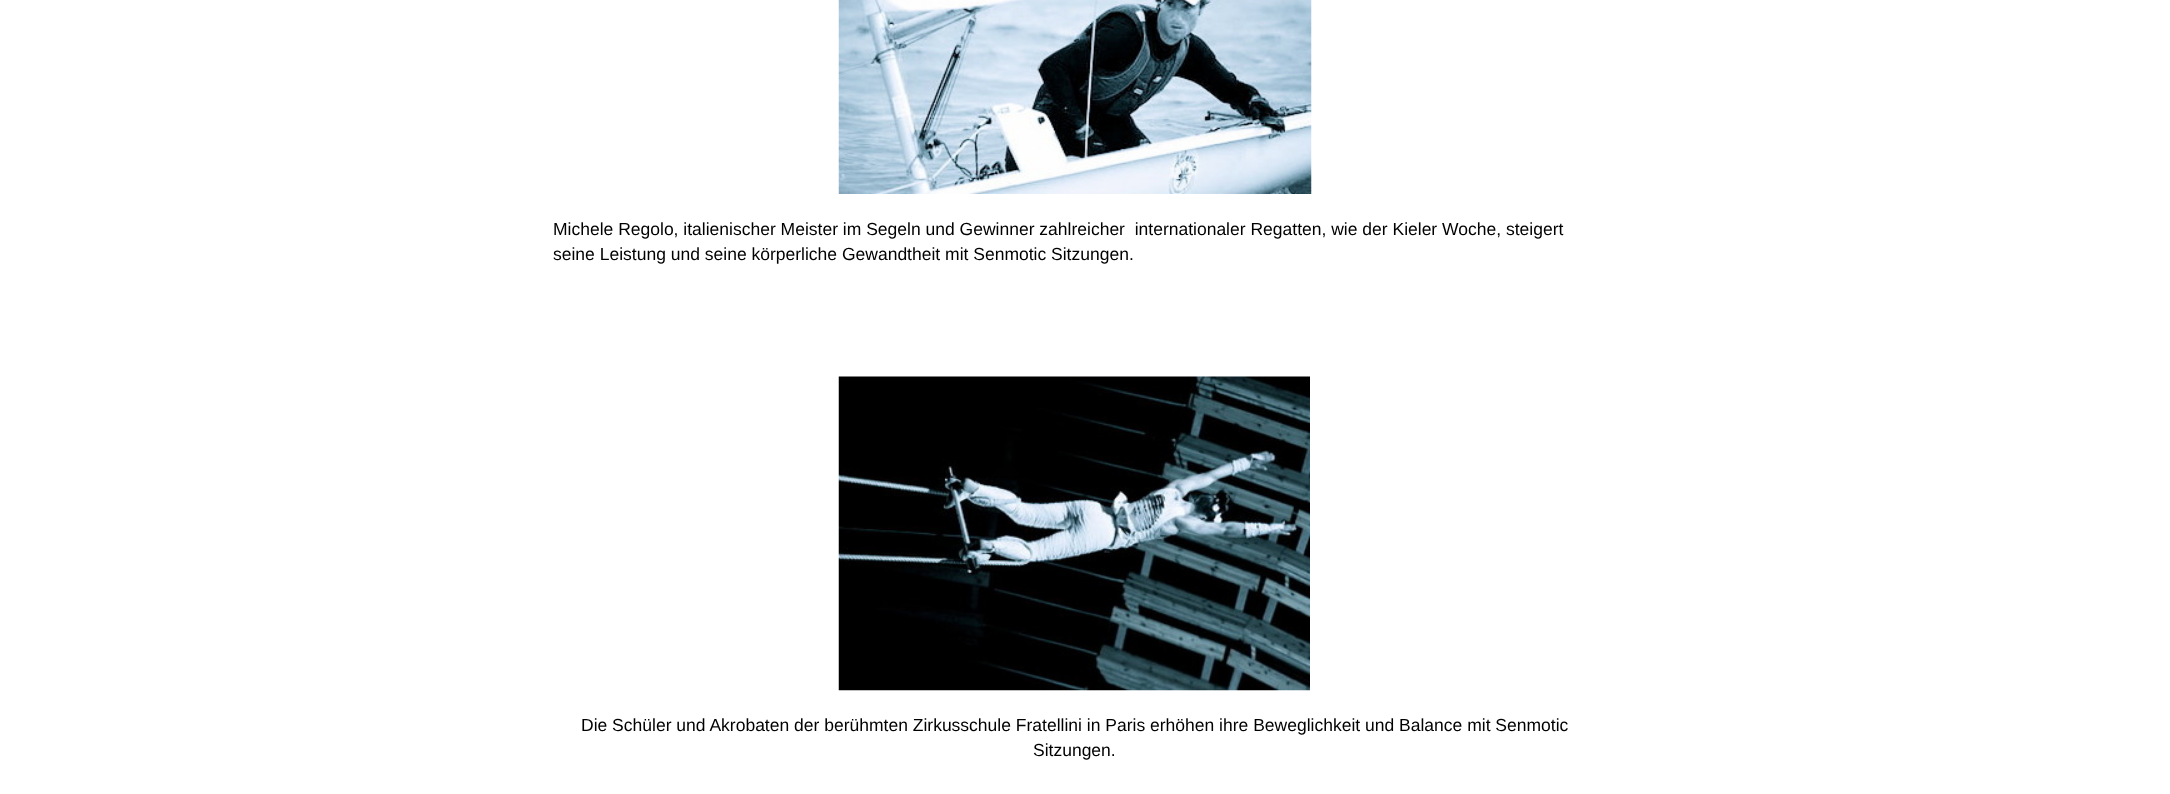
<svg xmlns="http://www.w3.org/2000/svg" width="2170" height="794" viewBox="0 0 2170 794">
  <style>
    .t1 { font: 17.5px Liberation Sans; fill: #000; }
  </style>
  <rect width="100%" height="100%" fill="#fff"/>
  <image x="838" y="0" width="474" height="194" href="images/1.png"/>
  <text x="553" y="235" class="t1" xml:space="preserve">Michele Regolo, italienischer Meister im Segeln und Gewinner zahlreicher  internationaler Regatten, wie der Kieler Woche, steigert</text>
  <text x="553" y="260" class="t1">seine Leistung und seine körperliche Gewandtheit mit Senmotic Sitzungen.</text>
  <image x="838" y="376" width="472" height="315" href="images/2.png"/>
  <text x="581" y="731" class="t1">Die Schüler und Akrobaten der berühmten Zirkusschule Fratellini in Paris erhöhen ihre Beweglichkeit und Balance mit Senmotic</text>
  <text x="1033" y="756" class="t1">Sitzungen.</text>
</svg>
